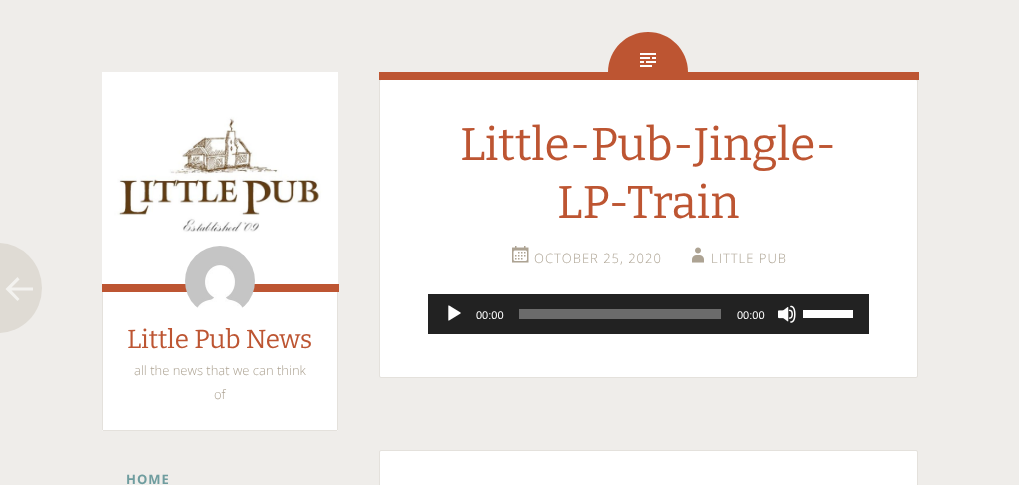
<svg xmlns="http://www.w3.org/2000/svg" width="1019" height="485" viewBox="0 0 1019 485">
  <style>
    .t1 { font: 46px Bitter; fill: #bd5532; }
    .t2 { font: 300 13px Open Sans; letter-spacing: 1px; fill: #ada393; }
    .t3 { font: 11px Liberation Sans; fill: #fff; }
    .t4 { font: 26px Bitter; fill: #bd5532; }
    .t5 { font: 300 13px Open Sans; fill: #ada393; }
    .t6 { font: bold 13px Open Sans; letter-spacing: 1px; fill: #6f9d9f; }
  </style>
  <rect width="100%" height="100%" fill="#efedea"/>
  <rect x="-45" y="243" width="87" height="90" rx="45" fill="#dfdbd4"/>
  <path d="M5.5 289L17.5 301L19.5 299L11.5 290.5H33V287.5H11.5L19.5 279.5L17.5 277Z" fill="#f3f2ef"/>
  <rect x="379.5" y="79.5" width="538" height="298" rx="1.5" fill="#fff" stroke="#e4e1dc"/>
  <path d="M648 32C670 32 688 50 688 72H608C608 50 626 32 648 32Z" fill="#bd5532"/>
  <image x="640" y="53" width="16" height="14" href="images/1.png"/>
  <rect x="379" y="72" width="540" height="8" fill="#bd5532"/>
  <text x="460" y="160" class="t1">Little-Pub-Jingle-</text>
  <text x="557" y="218" class="t1">LP-Train</text>
  <image x="512" y="246" width="17" height="17" href="images/2.png"/>
  <text x="534" y="263" class="t2">OCTOBER 25, 2020</text>
  <image x="692" y="247" width="12" height="16" href="images/3.png"/>
  <text x="711" y="263" class="t2">LITTLE PUB</text>
  <rect x="428" y="294" width="441" height="40" fill="#222"/>
  <image x="448" y="305" width="13" height="16" href="images/4.png"/>
  <text x="476" y="319" class="t3">00:00</text>
  <rect x="519" y="309" width="202" height="10" fill="#6b6b6b"/>
  <text x="737" y="319" class="t3">00:00</text>
  <image x="778" y="305" width="18" height="18" href="images/5.png"/>
  <rect x="803" y="310" width="50" height="8" fill="#fff"/>
  <rect x="379.5" y="450.5" width="538" height="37" rx="1.5" fill="#fff" stroke="#e4e1dc"/>
  <image x="102" y="72" width="236" height="212" href="images/6.png"/>
  <path d="M102 292H338V429C338 430 337 431 336 431H104C103 431 102 430 102 429Z" fill="#fff"/>
  <rect x="337" y="292" width="1" height="138" fill="#e4e1dc"/>
  <rect x="103" y="430" width="234" height="1" fill="#e4e1dc"/>
  <rect x="102" y="292" width="1" height="138" fill="#e4e1dc"/>
  <rect x="102" y="284" width="237" height="8" fill="#bd5532"/>
  <image x="185" y="246" width="70" height="62" href="images/7.png"/>
  <text x="127" y="348" class="t4">Little Pub News</text>
  <text x="134" y="375" class="t5">all the news that we can think</text>
  <text x="214" y="399" class="t5">of</text>
  <text x="126" y="484" class="t6">HOME</text>
</svg>
